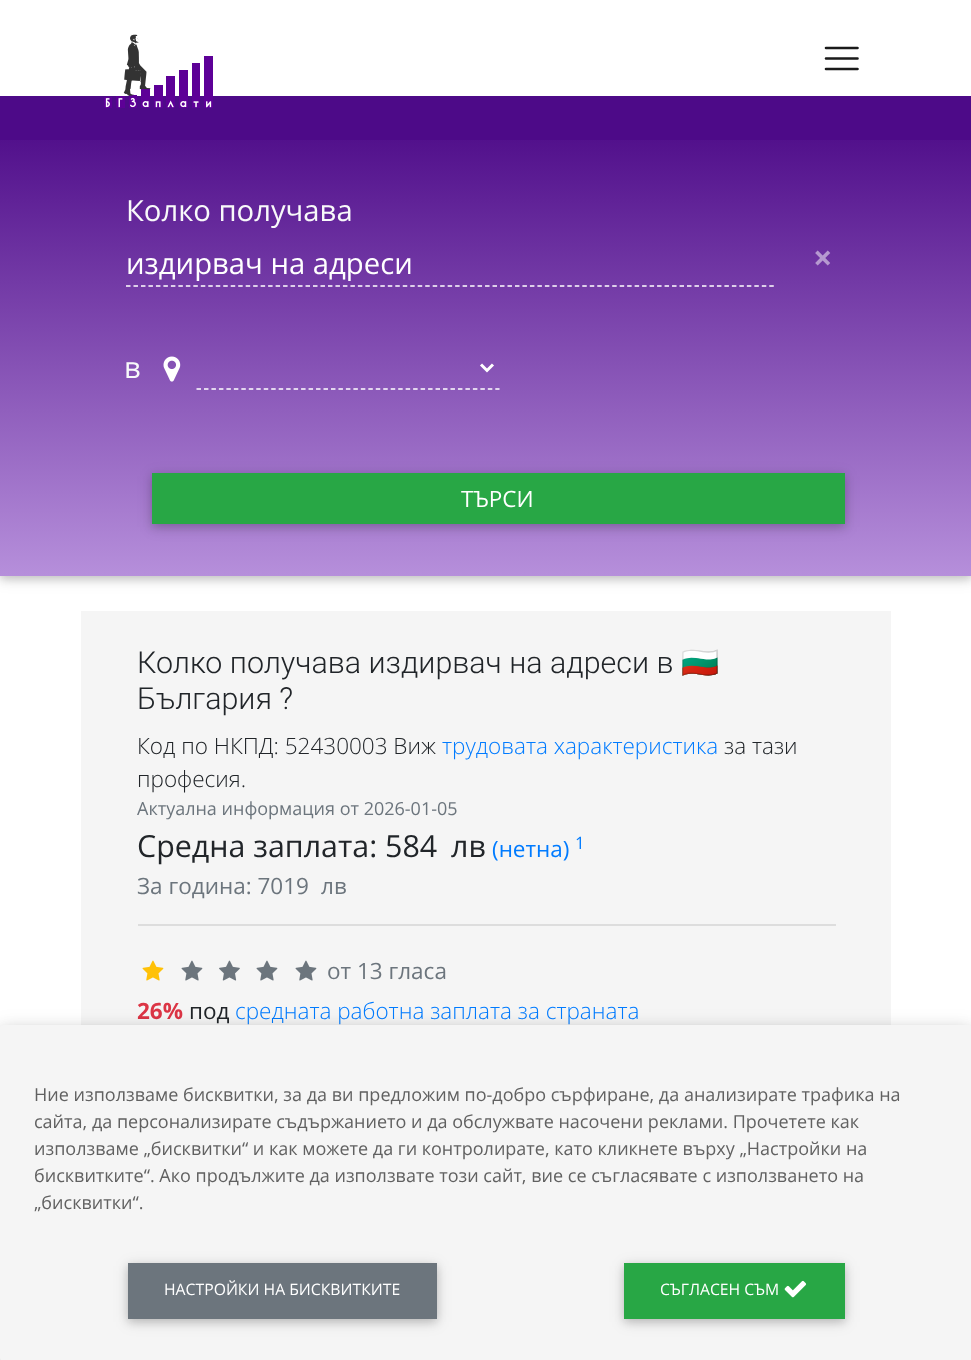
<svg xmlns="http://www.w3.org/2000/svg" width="971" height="1360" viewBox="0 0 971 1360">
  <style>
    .t1 { font: 29.25px Open Sans; fill: #f8f9fa; }
    .t2 { font: 29.25px Open Sans; fill: #fff; }
    .t3 { font: bold 34px Open Sans; fill: #b699d0; }
    .t4 { font: 22.5px Open Sans; fill: #fff; }
    .t5 { font: 300 30.4px Roboto; fill: #212529; }
    .t6 { font: 30.4px Noto Color Emoji; fill: #212529; }
    .t7 { font: 300 22.5px Open Sans; fill: #212529; }
    .t8 { font: 300 22.5px Open Sans; fill: #007bff; }
    .t9 { font: 18px Open Sans; fill: #6c757d; }
    .t10 { font: 30.4px Open Sans; fill: #212529; }
    .t11 { font: 22.5px Open Sans; fill: #007bff; }
    .t12 { font: 17px Open Sans; fill: #007bff; }
    .t13 { font: 22.5px Open Sans; fill: #6c757d; }
    .t14 { font: bold 22.5px Open Sans; fill: #dc3545; }
    .t15 { font: 22.5px Open Sans; fill: #212529; }
    .t16 { font: 18px Open Sans; fill: #616161; }
    .t17 { font: 15.75px Open Sans; fill: #fff; }
  </style>
  <defs>
    <linearGradient id="g1" gradientUnits="userSpaceOnUse" x1="486" y1="117" x2="486" y2="576"><stop offset="0" stop-color="#4d0a88"/><stop offset="1" stop-color="#b68fdb"/></linearGradient>
  </defs>
  <rect width="100%" height="100%" fill="#fff"/>
  <rect x="0" y="120" width="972" height="459" fill="#0000001f" filter="blur(7.5px)"/>
  <rect x="0" y="120" width="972" height="459" fill="#00000029" filter="blur(4px)"/>
  <rect x="0" y="96" width="971" height="44" fill="#4d0a88"/>
  <image x="104" y="34" width="109" height="74" href="images/1.png"/>
  <path d="M826 48H857.5M826 58.5H857.5M826 69H857.5" fill="none" stroke="#1a1a1a" stroke-width="2.6" stroke-linecap="round"/>
  <rect x="0" y="140" width="971" height="436" fill="url(#g1)"/>
  <text x="126" y="221" class="t1">Колко получава</text>
  <path d="M126 286H774" fill="none" stroke="#fff" stroke-width="1.5" stroke-dasharray="4.5 2.98"/>
  <text x="126" y="274" class="t2">издирвач на адреси</text>
  <text x="813" y="270" class="t3">×</text>
  <text x="124" y="378" class="t1">в</text>
  <image x="163" y="356" width="18" height="26" href="images/2.png"/>
  <path d="M196.5 389H499.5" fill="none" stroke="#fff" stroke-width="1.5" stroke-dasharray="4.5 2.97"/>
  <path d="M481 364.5L487 370.5L493 364.5" fill="none" stroke="#fff" stroke-width="3"/>
  <rect x="152" y="476" width="693" height="51" fill="#0000001f" filter="blur(7.5px)"/>
  <rect x="152" y="476" width="693" height="51" fill="#00000029" filter="blur(4px)"/>
  <rect x="152" y="473" width="693" height="51" fill="#28a745"/>
  <text x="461" y="507" class="t4">ТЪРСИ</text>
  <rect x="81" y="611" width="810" height="414" fill="#f5f5f5"/>
  <text x="137" y="673" class="t5">Колко получава издирвач на адреси в</text>
  <text x="681" y="673" class="t6">🇧🇬</text>
  <text x="137" y="709" class="t5">България ?</text>
  <text x="137" y="754" class="t7">Код по НКПД: 52430003 Виж</text>
  <text x="442" y="754" class="t8">трудовата характеристика</text>
  <text x="724" y="754" class="t7">за тази</text>
  <text x="137" y="787" class="t7">професия.</text>
  <text x="137" y="815" class="t9">Актуална информация от 2026-01-05</text>
  <text x="137" y="857" class="t10">Средна заплата: 584</text>
  <text x="451" y="857" class="t10">лв</text>
  <text x="492" y="857" class="t11">(нетна)</text>
  <text x="575" y="849" class="t12">1</text>
  <text x="137" y="894" class="t13">За година: 7019</text>
  <text x="321" y="894" class="t13">лв</text>
  <rect x="138" y="924" width="698" height="2" fill="#ddd"/>
  <image x="142" y="960" width="22" height="21" href="images/3.png"/>
  <image x="181" y="960" width="22" height="21" href="images/4.png"/>
  <image x="219" y="960" width="21" height="21" href="images/5.png"/>
  <image x="256" y="960" width="22" height="21" href="images/4.png"/>
  <image x="295" y="960" width="22" height="21" href="images/4.png"/>
  <text x="327" y="979" class="t13">от 13 гласа</text>
  <text x="137" y="1019" class="t14">26%</text>
  <text x="189" y="1019" class="t15">под</text>
  <text x="235" y="1019" class="t8">средната работна заплата за страната</text>
  <rect x="0" y="1031" width="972" height="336" rx="3" fill="#00000026" filter="blur(11px)"/>
  <rect x="0" y="1032" width="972" height="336" rx="3" fill="#0000002e" filter="blur(8px)"/>
  <rect x="0" y="1025" width="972" height="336" rx="3" fill="#f5f5f5"/>
  <text x="34" y="1101" class="t16">Ние използваме бисквитки, за да ви предложим по-добро сърфиране, да анализирате трафика на</text>
  <text x="34" y="1128" class="t16">сайта, да персонализирате съдържанието и да обслужвате насочени реклами. Прочетете как</text>
  <text x="34" y="1155" class="t16">използваме „бисквитки“ и как можете да ги контролирате, като кликнете върху „Настройки на</text>
  <text x="34" y="1182" class="t16">бисквитките“. Ако продължите да използвате този сайт, вие се съгласявате с използването на</text>
  <text x="34" y="1209" class="t16">„бисквитки“.</text>
  <rect x="128" y="1266" width="309" height="56" fill="#0000001f" filter="blur(7.5px)"/>
  <rect x="128" y="1266" width="309" height="56" fill="#00000029" filter="blur(4px)"/>
  <rect x="128" y="1263" width="309" height="56" fill="#6c757d"/>
  <text x="164" y="1295" class="t17">НАСТРОЙКИ НА БИСКВИТКИТЕ</text>
  <rect x="624" y="1266" width="221" height="56" fill="#0000001f" filter="blur(7.5px)"/>
  <rect x="624" y="1266" width="221" height="56" fill="#00000029" filter="blur(4px)"/>
  <rect x="624" y="1263" width="221" height="56" fill="#28a745"/>
  <text x="660" y="1295" class="t17">СЪГЛАСЕН СЪМ</text>
  <image x="784" y="1280" width="23" height="18" href="images/6.png"/>
</svg>
